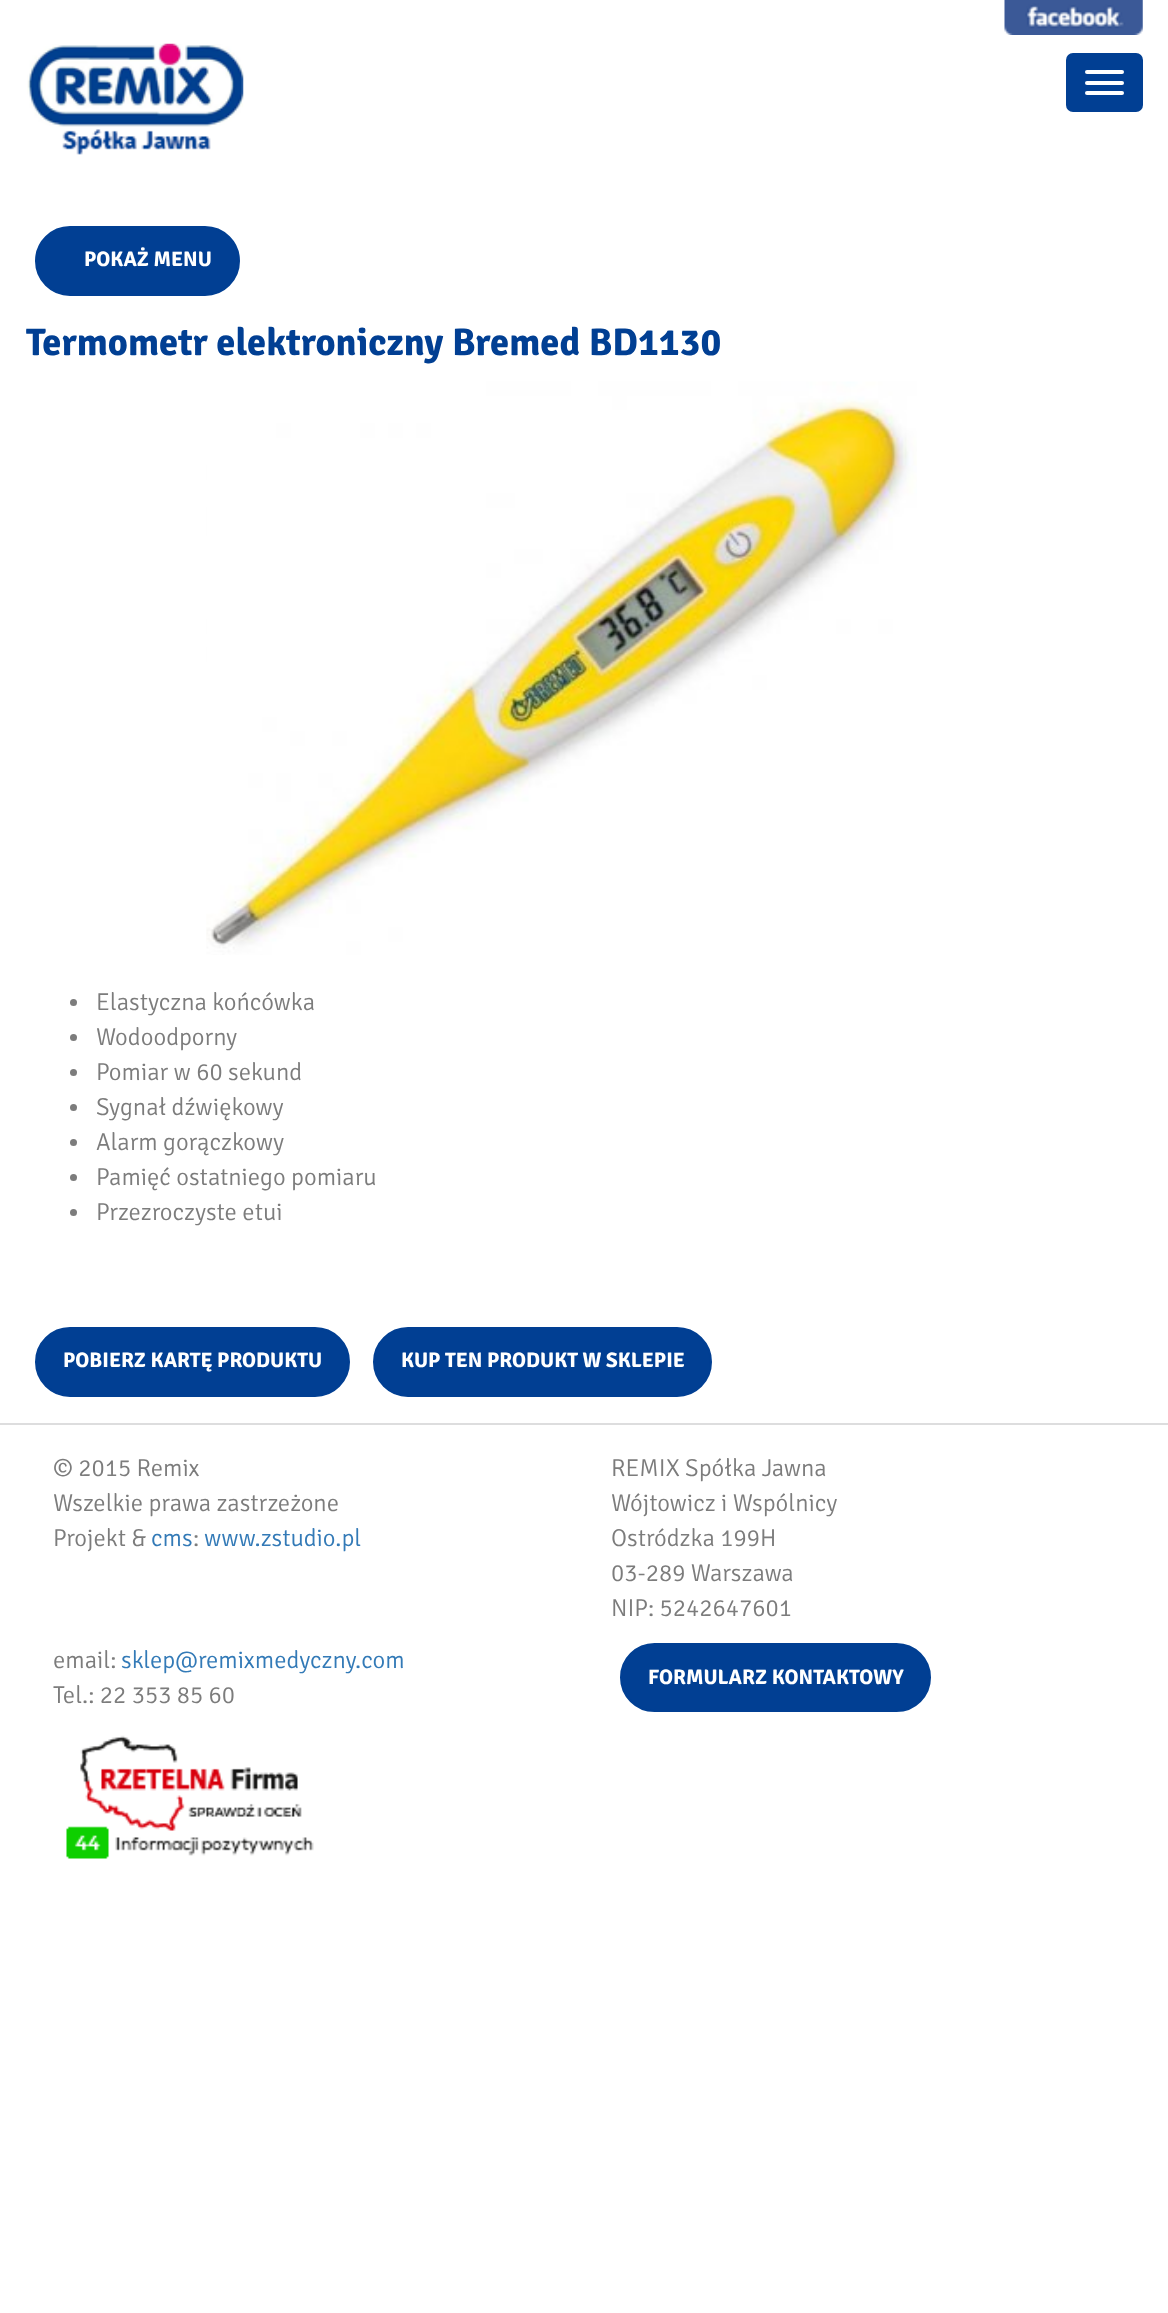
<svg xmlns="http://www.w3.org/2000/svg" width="1168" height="2313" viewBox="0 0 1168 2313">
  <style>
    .t1 { font: bold 21px Signika; fill: #fff; }
    .t2 { font: bold 38.5px Signika; fill: #013f93; }
    .t3 { font: 300 24.5px Signika; fill: #7c7c7c; }
    .t4 { font: 300 24.5px Signika; fill: #337ab7; }
  </style>
  <rect width="100%" height="100%" fill="#fff"/>
  <image x="1004" y="0" width="139" height="35" href="images/1.png"/>
  <image x="27" y="43" width="217" height="112" href="images/2.png"/>
  <rect x="1066" y="53" width="77" height="59" rx="7" fill="#013f93"/>
  <rect x="1085" y="70" width="39" height="4" rx="2" fill="#fff"/>
  <rect x="1085" y="81" width="39" height="4" rx="2" fill="#fff"/>
  <rect x="1085" y="91" width="39" height="4" rx="2" fill="#fff"/>
  <rect x="36" y="227" width="203" height="68" rx="34" fill="#013f93" stroke="#013f93" stroke-width="2"/>
  <text x="84" y="266" class="t1">POKAŻ MENU</text>
  <text x="26" y="355" class="t2">Termometr elektroniczny Bremed BD1130</text>
  <image x="206" y="381" width="711" height="574" href="images/3.png"/>
  <circle cx="73.5" cy="1002.5" r="3.5" fill="#7c7c7c"/>
  <text x="96" y="1010" class="t3">Elastyczna końcówka</text>
  <circle cx="73.5" cy="1037.5" r="3.5" fill="#7c7c7c"/>
  <text x="96" y="1045" class="t3">Wodoodporny</text>
  <circle cx="73.5" cy="1072.5" r="3.5" fill="#7c7c7c"/>
  <text x="96" y="1080" class="t3">Pomiar w 60 sekund</text>
  <circle cx="73.5" cy="1107.5" r="3.5" fill="#7c7c7c"/>
  <text x="96" y="1115" class="t3">Sygnał dźwiękowy</text>
  <circle cx="73.5" cy="1142.5" r="3.5" fill="#7c7c7c"/>
  <text x="96" y="1150" class="t3">Alarm gorączkowy</text>
  <circle cx="73.5" cy="1177.5" r="3.5" fill="#7c7c7c"/>
  <text x="96" y="1185" class="t3">Pamięć ostatniego pomiaru</text>
  <circle cx="73.5" cy="1212.5" r="3.5" fill="#7c7c7c"/>
  <text x="96" y="1220" class="t3">Przezroczyste etui</text>
  <rect x="36" y="1328" width="313" height="68" rx="34" fill="#013f93" stroke="#013f93" stroke-width="2"/>
  <text x="63" y="1367" class="t1">POBIERZ KARTĘ PRODUKTU</text>
  <rect x="374" y="1328" width="337" height="68" rx="34" fill="#013f93" stroke="#013f93" stroke-width="2"/>
  <text x="401" y="1367" class="t1">KUP TEN PRODUKT W SKLEPIE</text>
  <rect x="0" y="1423" width="1168" height="2" fill="#ddddde"/>
  <text x="53" y="1476" class="t3">© 2015 Remix</text>
  <text x="53" y="1511" class="t3">Wszelkie prawa zastrzeżone</text>
  <text x="53" y="1546" class="t3">Projekt &amp;</text>
  <text x="151" y="1546" class="t4">cms</text>
  <text x="193" y="1546" class="t3">:</text>
  <text x="204" y="1546" class="t4">www.zstudio.pl</text>
  <text x="611" y="1476" class="t3">REMIX Spółka Jawna</text>
  <text x="611" y="1511" class="t3">Wójtowicz i Wspólnicy</text>
  <text x="611" y="1546" class="t3">Ostródzka 199H</text>
  <text x="611" y="1581" class="t3">03-289 Warszawa</text>
  <text x="611" y="1616" class="t3">NIP: 5242647601</text>
  <text x="53" y="1668" class="t3">email:</text>
  <text x="121" y="1668" class="t4">sklep@remixmedyczny.com</text>
  <text x="53" y="1703" class="t3">Tel.: 22 353 85 60</text>
  <image x="66" y="1735" width="248" height="124" href="images/4.png"/>
  <rect x="621" y="1644" width="309" height="67" rx="33.5" fill="#013f93" stroke="#013f93" stroke-width="2"/>
  <text x="648" y="1684" class="t1">FORMULARZ KONTAKTOWY</text>
</svg>
